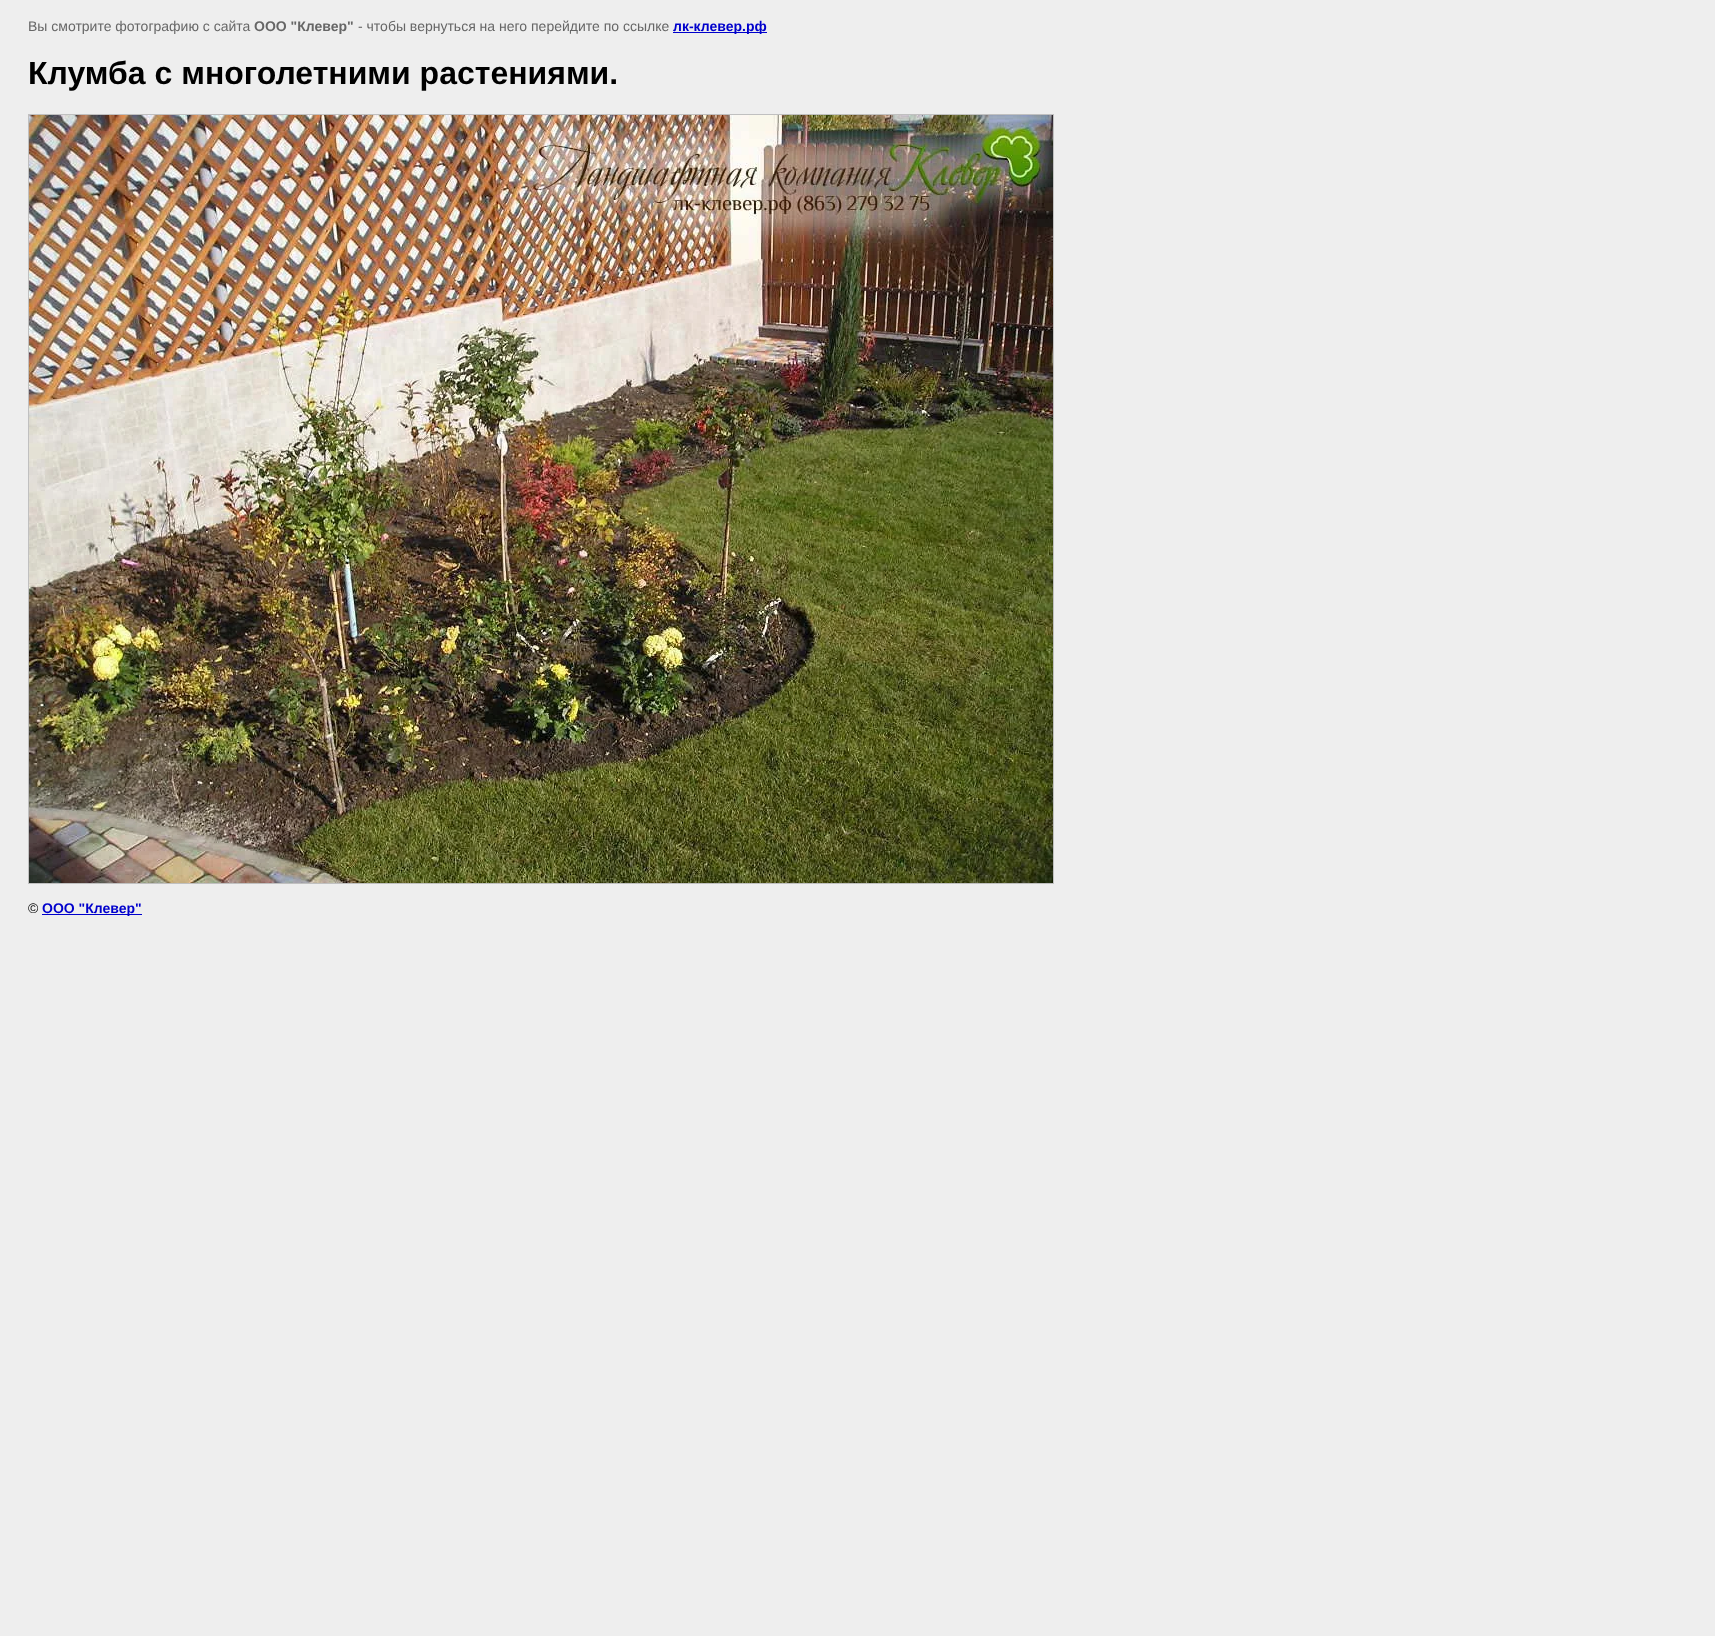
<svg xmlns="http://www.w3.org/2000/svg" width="1715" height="1636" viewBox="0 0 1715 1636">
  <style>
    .t1 { font: 14px Liberation Sans; fill: #666; }
    .t2 { font: bold 14px Liberation Sans; fill: #666; }
    .t3 { font: bold 14px Liberation Sans; fill: #00c; }
    .t4 { font: bold 32px Liberation Sans; fill: #000; }
    .t5 { font: 14px Liberation Sans; fill: #000; }
  </style>
  <rect width="100%" height="100%" fill="#eee"/>
  <text x="28" y="31" class="t1">Вы смотрите фотографию с сайта</text>
  <text x="254" y="31" class="t2">ООО "Клевер"</text>
  <text x="358" y="31" class="t1">- чтобы вернуться на него перейдите по ссылке</text>
  <rect x="673" y="32" width="94" height="1" fill="#00c"/>
  <text x="673" y="31" class="t3">лк-клевер.рф</text>
  <text x="28" y="84" class="t4">Клумба с многолетними растениями.</text>
  <rect x="28.5" y="114.5" width="1025" height="769" fill="none" stroke="#c0c0c0"/>
  <image x="29" y="115" width="1024" height="768" href="images/1.png"/>
  <text x="28" y="913" class="t5">©</text>
  <rect x="42" y="914" width="100" height="1" fill="#00c"/>
  <text x="42" y="913" class="t3">ООО "Клевер"</text>
</svg>
